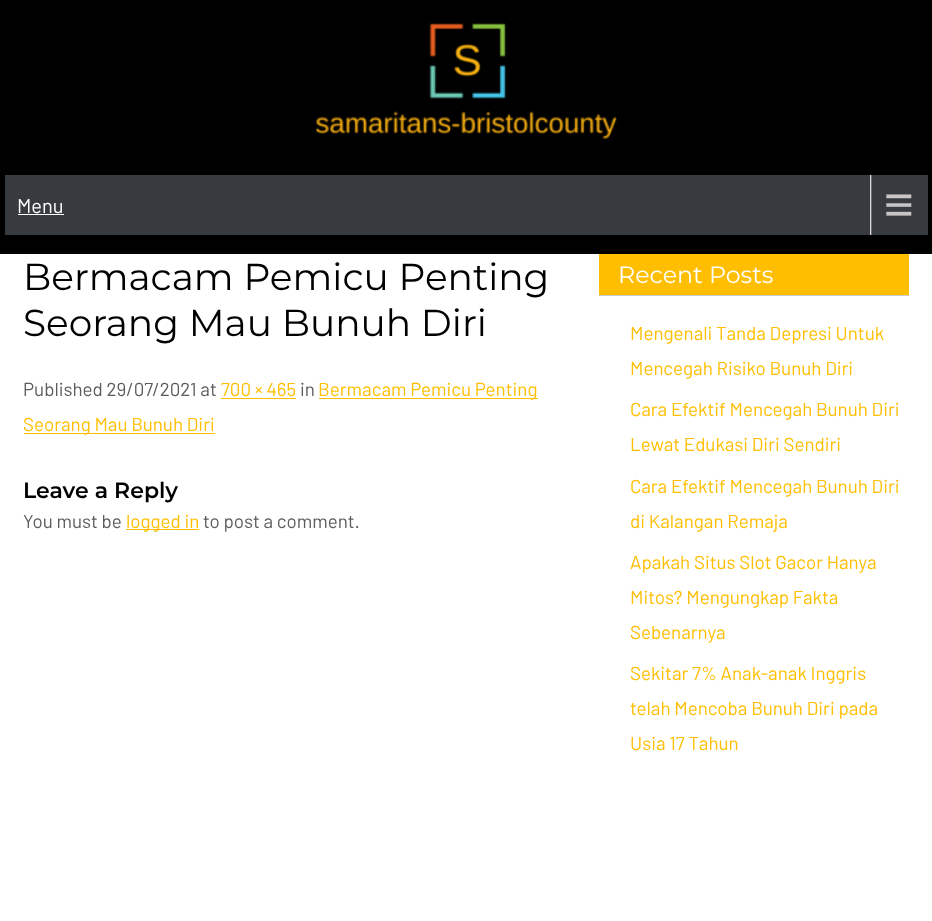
<svg xmlns="http://www.w3.org/2000/svg" width="932" height="921" viewBox="0 0 932 921">
  <style>
    .t1 { font: 20px Barlow; fill: #fff; }
    .t2 { font: 37.5px Montserrat; fill: #000; }
    .t3 { font: 18.75px Barlow; fill: #5c5c5c; }
    .t4 { font: 18.75px Barlow; fill: #ffbe00; }
    .t5 { font: 600 22px Montserrat; fill: #000; }
    .t6 { font: 23.75px Montserrat; fill: #fff; }
  </style>
  <rect width="100%" height="100%" fill="#fff"/>
  <rect x="0" y="0" width="932" height="254" fill="#000"/>
  <image x="316" y="23" width="301" height="116" href="images/1.png"/>
  <rect x="5" y="175" width="923" height="60" fill="#373a3f"/>
  <image x="870" y="175" width="42" height="60" href="images/2.png"/>
  <text x="17" y="213" class="t1">Menu</text>
  <rect x="18" y="214" width="46" height="1" fill="#fff"/>
  <text x="23" y="290" class="t2">Bermacam Pemicu Penting</text>
  <text x="23" y="336" class="t2">Seorang Mau Bunuh Diri</text>
  <text x="23" y="396" class="t3">Published 29/07/2021 at</text>
  <text x="221" y="396" class="t4">700 × 465</text>
  <rect x="221" y="398" width="75" height="1" fill="#ffbe00"/>
  <text x="300" y="396" class="t3">in</text>
  <rect x="319" y="398" width="219" height="1" fill="#ffbe00"/>
  <text x="318" y="396" class="t4">Bermacam Pemicu Penting</text>
  <rect x="24" y="433" width="191" height="1" fill="#ffbe00"/>
  <text x="23" y="431" class="t4">Seorang Mau Bunuh Diri</text>
  <text x="23" y="498" class="t5">Leave a Reply</text>
  <text x="23" y="528" class="t3">You must be</text>
  <rect x="126" y="529" width="73" height="1" fill="#ffbe00"/>
  <text x="126" y="528" class="t4">logged in</text>
  <text x="203" y="528" class="t3">to post a comment.</text>
  <rect x="599" y="254" width="310" height="41" fill="#ffbe00"/>
  <rect x="599" y="295" width="310" height="1" fill="#ccc"/>
  <text x="618" y="283" class="t6">Recent Posts</text>
  <text x="630" y="340" class="t4">Mengenali Tanda Depresi Untuk</text>
  <text x="630" y="375" class="t4">Mencegah Risiko Bunuh Diri</text>
  <text x="630" y="416" class="t4">Cara Efektif Mencegah Bunuh Diri</text>
  <text x="630" y="451" class="t4">Lewat Edukasi Diri Sendiri</text>
  <text x="630" y="493" class="t4">Cara Efektif Mencegah Bunuh Diri</text>
  <text x="630" y="528" class="t4">di Kalangan Remaja</text>
  <text x="630" y="569" class="t4">Apakah Situs Slot Gacor Hanya</text>
  <text x="630" y="604" class="t4">Mitos? Mengungkap Fakta</text>
  <text x="630" y="639" class="t4">Sebenarnya</text>
  <text x="630" y="680" class="t4">Sekitar 7% Anak-anak Inggris</text>
  <text x="630" y="715" class="t4">telah Mencoba Bunuh Diri pada</text>
  <text x="630" y="750" class="t4">Usia 17 Tahun</text>
</svg>
